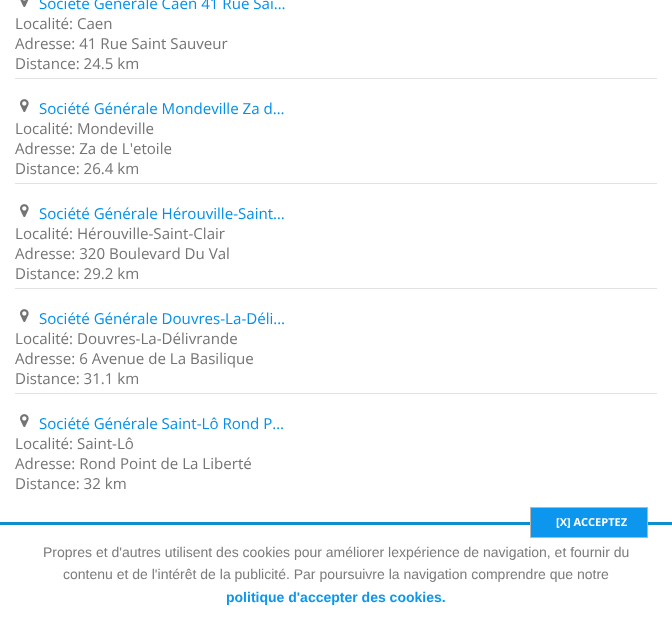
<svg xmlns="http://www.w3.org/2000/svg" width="672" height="618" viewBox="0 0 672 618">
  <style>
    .t1 { font: 15.1px Open Sans; fill: #0090ec; }
    .t2 { font: 15.1px Open Sans; fill: #747474; }
    .t3 { font: bold 11px Open Sans; fill: #fff; }
    .t4 { font: 14px Liberation Sans; fill: #7b7b7b; }
    .t5 { font: bold 14px Liberation Sans; fill: #0d96ed; }
  </style>
  <rect width="100%" height="100%" fill="#fff"/>
  <image x="20" y="0" width="9" height="7" href="images/1.png"/>
  <text x="39" y="9" class="t1">Société Générale Caen 41 Rue Sai…</text>
  <text x="15" y="29" class="t2">Localité: Caen</text>
  <text x="15" y="49" class="t2">Adresse: 41 Rue Saint Sauveur</text>
  <text x="15" y="69" class="t2">Distance: 24.5 km</text>
  <rect x="15" y="78" width="642" height="1" fill="#e2e2e2"/>
  <image x="20" y="99" width="9" height="13" href="images/2.png"/>
  <text x="39" y="114" class="t1">Société Générale Mondeville Za d…</text>
  <text x="15" y="134" class="t2">Localité: Mondeville</text>
  <text x="15" y="154" class="t2">Adresse: Za de L'etoile</text>
  <text x="15" y="174" class="t2">Distance: 26.4 km</text>
  <rect x="15" y="183" width="642" height="1" fill="#e2e2e2"/>
  <image x="20" y="204" width="9" height="13" href="images/2.png"/>
  <text x="39" y="219" class="t1">Société Générale Hérouville-Saint…</text>
  <text x="15" y="239" class="t2">Localité: Hérouville-Saint-Clair</text>
  <text x="15" y="259" class="t2">Adresse: 320 Boulevard Du Val</text>
  <text x="15" y="279" class="t2">Distance: 29.2 km</text>
  <rect x="15" y="288" width="642" height="1" fill="#e2e2e2"/>
  <image x="20" y="309" width="9" height="13" href="images/2.png"/>
  <text x="39" y="324" class="t1">Société Générale Douvres-La-Déli…</text>
  <text x="15" y="344" class="t2">Localité: Douvres-La-Délivrande</text>
  <text x="15" y="364" class="t2">Adresse: 6 Avenue de La Basilique</text>
  <text x="15" y="384" class="t2">Distance: 31.1 km</text>
  <rect x="15" y="393" width="642" height="1" fill="#e2e2e2"/>
  <image x="20" y="414" width="9" height="13" href="images/2.png"/>
  <text x="39" y="429" class="t1">Société Générale Saint-Lô Rond P…</text>
  <text x="15" y="449" class="t2">Localité: Saint-Lô</text>
  <text x="15" y="469" class="t2">Adresse: Rond Point de La Liberté</text>
  <text x="15" y="489" class="t2">Distance: 32 km</text>
  <rect x="0" y="522" width="672" height="3" fill="#0d8ecf"/>
  <rect x="530.5" y="507.5" width="117" height="30" fill="#0d96ed" stroke="#b6b6b5"/>
  <text x="556" y="526" class="t3">[X] ACCEPTEZ</text>
  <text x="43" y="557" class="t4">Propres et d'autres utilisent des cookies pour améliorer lexpérience de navigation, et fournir du</text>
  <text x="63" y="579" class="t4">contenu et de l'intérêt de la publicité. Par poursuivre la navigation comprendre que notre</text>
  <text x="226" y="602" class="t5">politique d'accepter des cookies.</text>
</svg>
